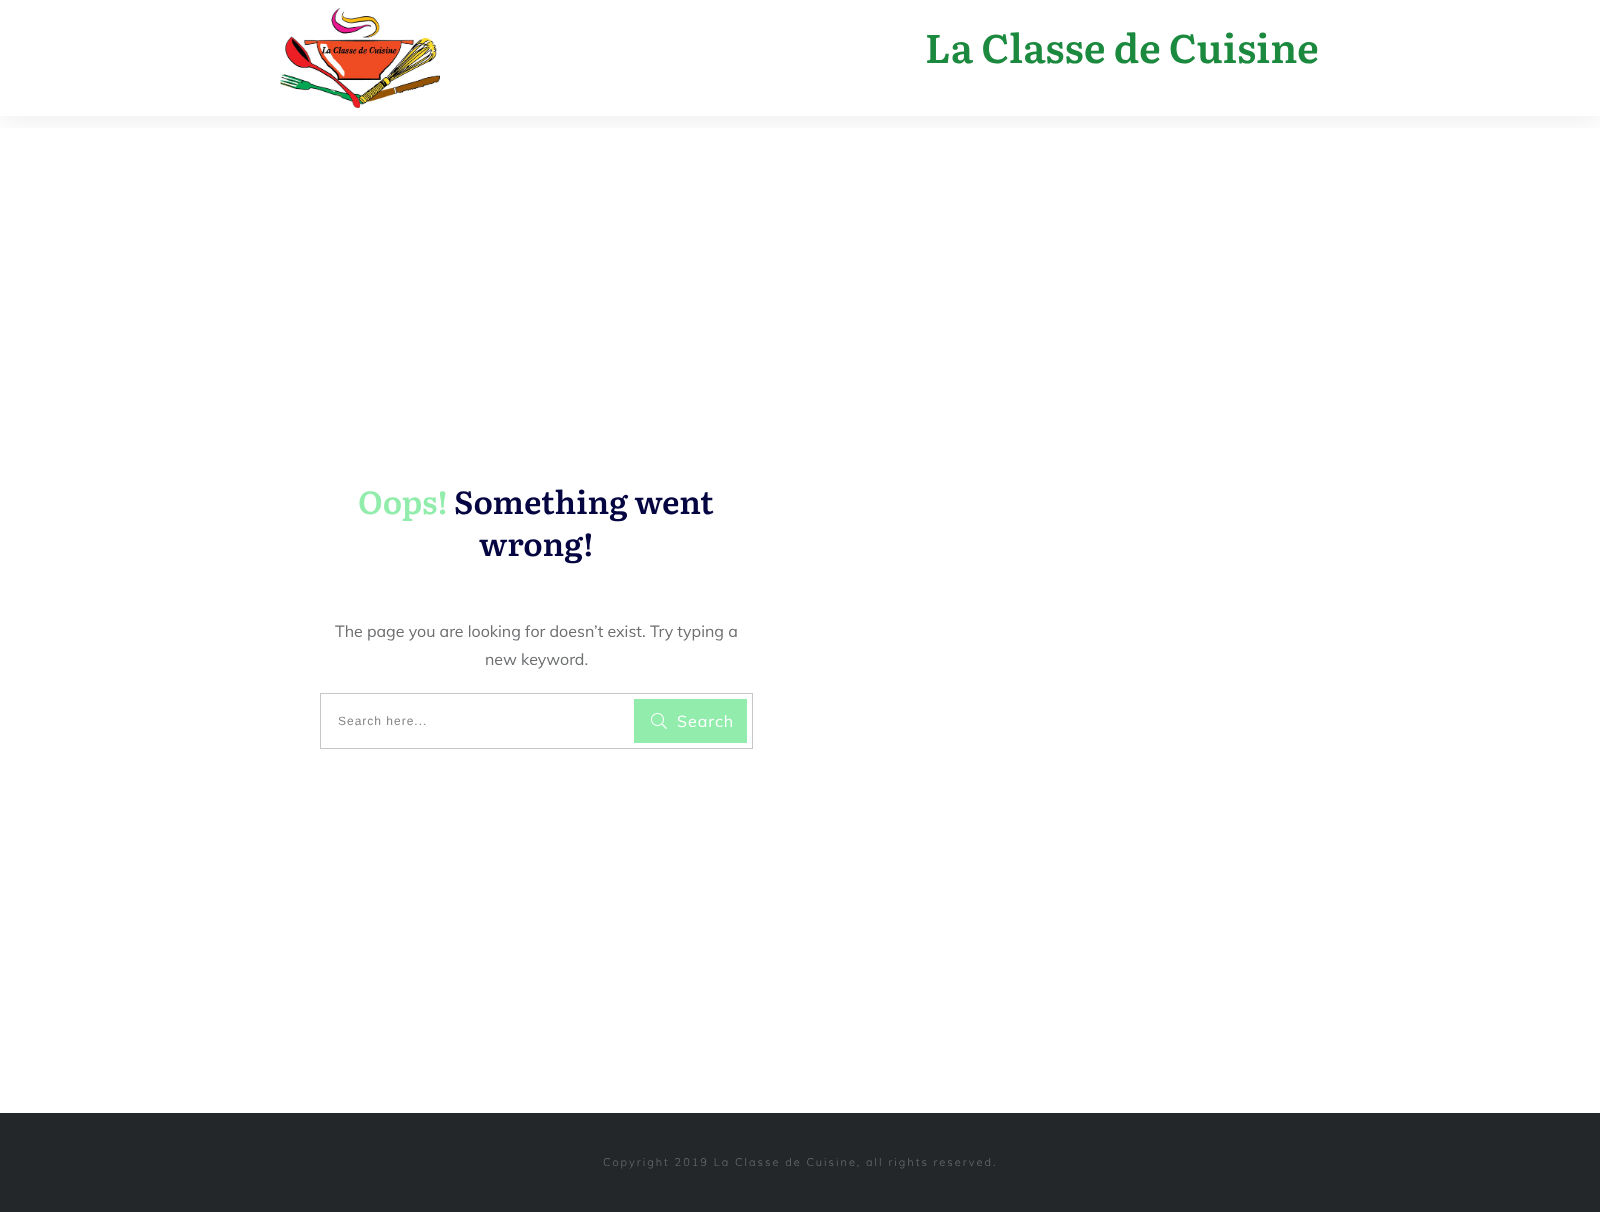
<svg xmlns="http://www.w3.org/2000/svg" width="1600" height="1212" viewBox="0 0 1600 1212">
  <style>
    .t1 { font: 600 40px Literata; fill: #1b893e; }
    .t2 { font: 600 32px Literata; fill: #92edad; }
    .t3 { font: 600 32px Literata; fill: #050541; }
    .t4 { font: 16px Muli; fill: #6c6e70; }
    .t5 { font: 12px Liberation Sans; letter-spacing: 1px; fill: #858585; }
    .t6 { font: 16px Muli; letter-spacing: 1px; fill: #fff; }
    .t7 { font: 300 11px Muli; letter-spacing: 2px; fill: #6c6e70; }
  </style>
  <defs>
    <clipPath id="clip1"><rect x="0" y="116" width="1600" height="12"/></clipPath>
  </defs>
  <rect width="100%" height="100%" fill="#fff"/>
  <g clip-path="url(#clip1)">
    <rect x="0" y="2" width="1600" height="116" fill="#00000014" filter="blur(15px)"/>
  </g>
  <image x="280" y="8" width="160" height="100" href="images/1.png"/>
  <text x="925" y="63" class="t1">La Classe de Cuisine</text>
  <text x="358" y="514" class="t2">Oops!</text>
  <text x="454" y="514" class="t3">Something went</text>
  <text x="479" y="556" class="t3">wrong!</text>
  <text x="335" y="637" class="t4">The page you are looking for doesn’t exist. Try typing a</text>
  <text x="485" y="665" class="t4">new keyword.</text>
  <rect x="320.5" y="693.5" width="432" height="55" fill="none" stroke="#c7c7c7"/>
  <text x="338" y="725" class="t5">Search here...</text>
  <rect x="634" y="699" width="113" height="44" fill="#92edad"/>
  <image x="651" y="713" width="16" height="16" href="images/2.png"/>
  <text x="677" y="727" class="t6">Search</text>
  <rect x="0" y="1113" width="1600" height="99" fill="#24272a"/>
  <text x="603" y="1166" class="t7">Copyright 2019 La Classe de Cuisine, all rights reserved.</text>
</svg>
